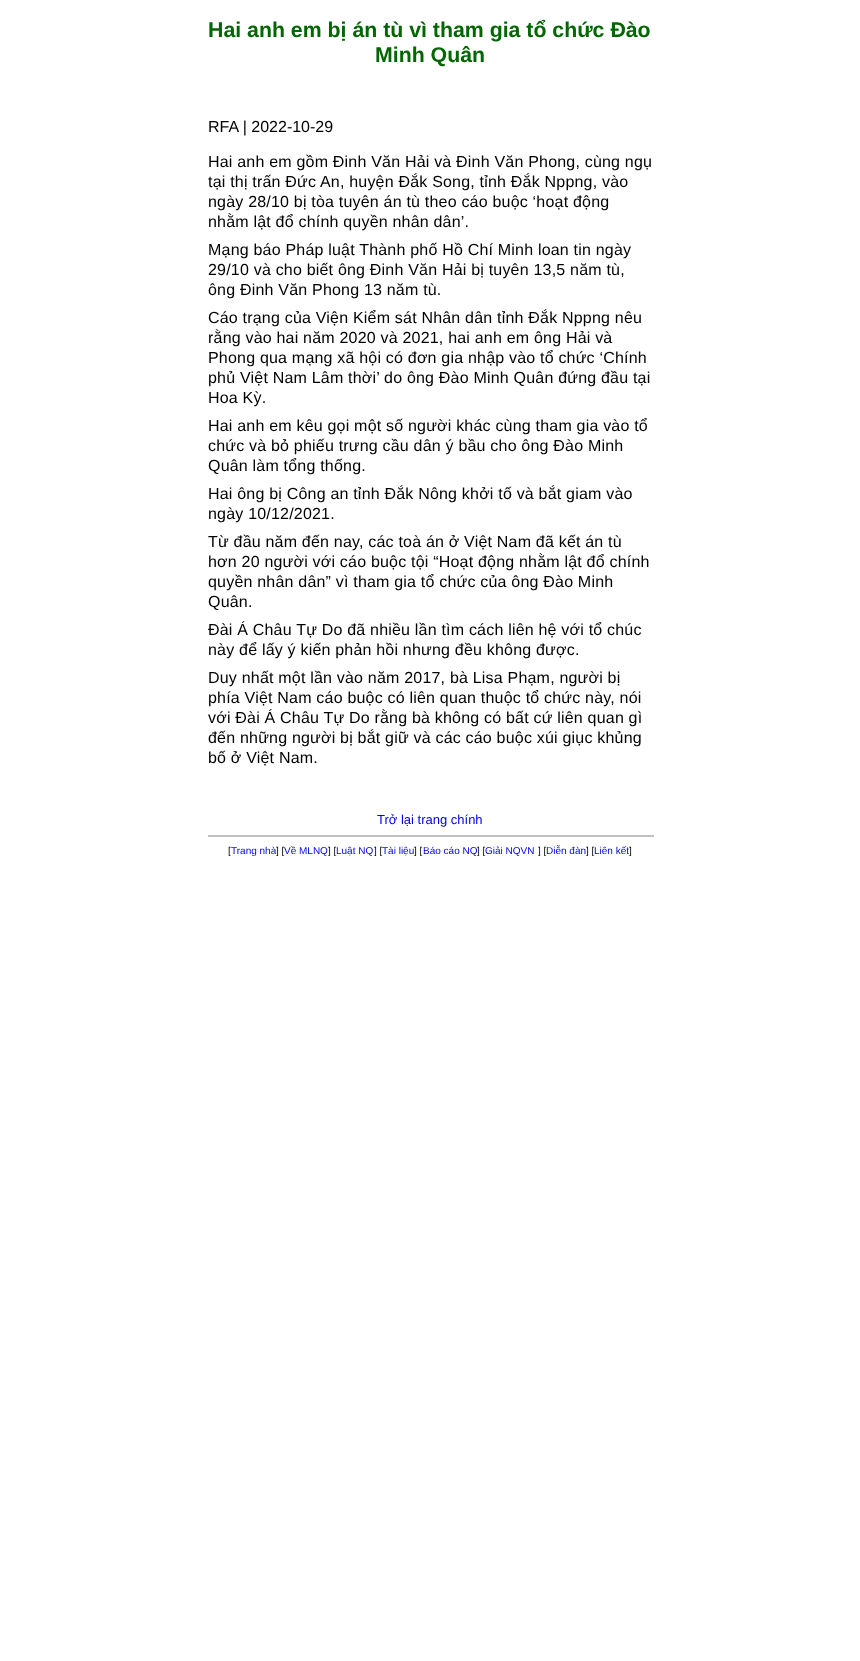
<svg xmlns="http://www.w3.org/2000/svg" width="860" height="1661" viewBox="0 0 860 1661">
  <style>
    .t1 { font: bold 21.3px Liberation Sans; fill: #060; }
    .t2 { font: 16px Liberation Sans; fill: #000; }
    .t3 { font: 16px Liberation Sans; letter-spacing: 0.2px; fill: #000; }
    .t4 { font: 13px Liberation Sans; fill: #00e; }
    .t5 { font: 10px Liberation Sans; fill: #000; }
    .t6 { font: 10px Liberation Sans; fill: #00e; }
  </style>
  <rect width="100%" height="100%" fill="#fff"/>
  <text x="208" y="37" class="t1">Hai anh em bị án tù vì tham gia tổ chức Đào</text>
  <text x="375" y="62" class="t1">Minh Quân</text>
  <text x="208" y="132" class="t2">RFA | 2022-10-29</text>
  <text x="208" y="167" class="t3">Hai anh em gồm Đinh Văn Hải và Đinh Văn Phong, cùng ngụ</text>
  <text x="208" y="187" class="t3">tại thị trấn Đức An, huyện Đắk Song, tỉnh Đắk Nppng, vào</text>
  <text x="208" y="207" class="t3">ngày 28/10 bị tòa tuyên án tù theo cáo buộc ‘hoạt động</text>
  <text x="208" y="227" class="t3">nhằm lật đổ chính quyền nhân dân’.</text>
  <text x="208" y="255" class="t3">Mạng báo Pháp luật Thành phố Hồ Chí Minh loan tin ngày</text>
  <text x="208" y="275" class="t3">29/10 và cho biết ông Đinh Văn Hải bị tuyên 13,5 năm tù,</text>
  <text x="208" y="295" class="t3">ông Đinh Văn Phong 13 năm tù.</text>
  <text x="208" y="323" class="t3">Cáo trạng của Viện Kiểm sát Nhân dân tỉnh Đắk Nppng nêu</text>
  <text x="208" y="343" class="t3">rằng vào hai năm 2020 và 2021, hai anh em ông Hải và</text>
  <text x="208" y="363" class="t3">Phong qua mạng xã hội có đơn gia nhập vào tổ chức ‘Chính</text>
  <text x="208" y="383" class="t3">phủ Việt Nam Lâm thời’ do ông Đào Minh Quân đứng đầu tại</text>
  <text x="208" y="403" class="t3">Hoa Kỳ.</text>
  <text x="208" y="431" class="t3">Hai anh em kêu gọi một số người khác cùng tham gia vào tổ</text>
  <text x="208" y="451" class="t3">chức và bỏ phiếu trưng cầu dân ý bầu cho ông Đào Minh</text>
  <text x="208" y="471" class="t3">Quân làm tổng thống.</text>
  <text x="208" y="499" class="t3">Hai ông bị Công an tỉnh Đắk Nông khởi tố và bắt giam vào</text>
  <text x="208" y="519" class="t3">ngày 10/12/2021.</text>
  <text x="208" y="547" class="t3">Từ đầu năm đến nay, các toà án ở Việt Nam đã kết án tù</text>
  <text x="208" y="567" class="t3">hơn 20 người với cáo buộc tội “Hoạt động nhằm lật đổ chính</text>
  <text x="208" y="587" class="t3">quyền nhân dân” vì tham gia tổ chức của ông Đào Minh</text>
  <text x="208" y="607" class="t3">Quân.</text>
  <text x="208" y="635" class="t3">Đài Á Châu Tự Do đã nhiều lần tìm cách liên hệ với tổ chúc</text>
  <text x="208" y="655" class="t3">này để lấy ý kiến phản hồi nhưng đều không được.</text>
  <text x="208" y="683" class="t3">Duy nhất một lần vào năm 2017, bà Lisa Phạm, người bị</text>
  <text x="208" y="703" class="t3">phía Việt Nam cáo buộc có liên quan thuộc tổ chức này, nói</text>
  <text x="208" y="723" class="t3">với Đài Á Châu Tự Do rằng bà không có bất cứ liên quan gì</text>
  <text x="208" y="743" class="t3">đến những người bị bắt giữ và các cáo buộc xúi giục khủng</text>
  <text x="208" y="763" class="t3">bố ở Việt Nam.</text>
  <text x="377" y="824" class="t4">Trở lại trang chính</text>
  <rect x="208" y="835" width="446" height="2" fill="#c0c0c0"/>
  <text x="228" y="854" class="t5">[</text>
  <text x="231" y="854" class="t6">Trang nhà</text>
  <text x="276" y="854" class="t5">] [</text>
  <text x="284" y="854" class="t6">Về MLNQ</text>
  <text x="328" y="854" class="t5">] [</text>
  <text x="336" y="854" class="t6">Luật NQ</text>
  <text x="374" y="854" class="t5">] [</text>
  <text x="382" y="854" class="t6">Tài liệu</text>
  <text x="414" y="854" class="t5">] [</text>
  <text x="423" y="854" class="t6">Báo cáo NQ</text>
  <text x="477" y="854" class="t5">] [</text>
  <text x="485" y="854" class="t6">Giải NQVN</text>
  <text x="538" y="854" class="t5">] [</text>
  <text x="546" y="854" class="t6">Diễn đàn</text>
  <text x="586" y="854" class="t5">] [</text>
  <text x="594" y="854" class="t6">Liên kết</text>
  <text x="629" y="854" class="t5">]</text>
</svg>
